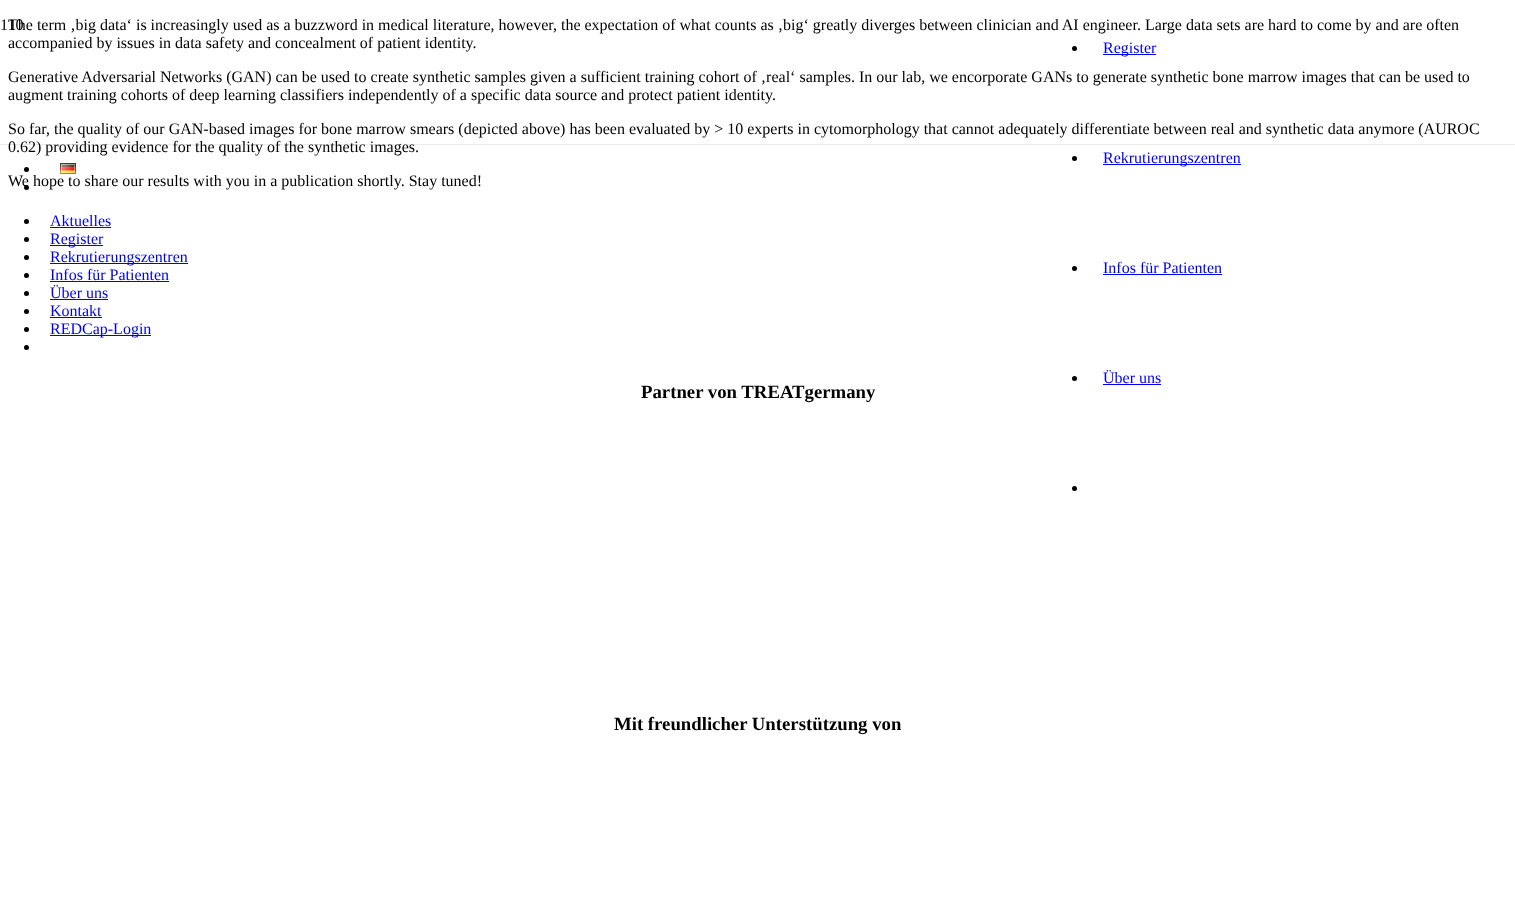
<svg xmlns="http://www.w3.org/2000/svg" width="1515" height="901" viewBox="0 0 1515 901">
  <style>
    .t1 { font: 16px Liberation Serif; fill: #000; }
    .t2 { font: 16px Liberation Serif; fill: #00e; }
    .t3 { font: bold 18.75px Liberation Serif; fill: #000; }
  </style>
  <rect width="100%" height="100%" fill="#fff"/>
  <text x="8" y="30" class="t1">The term ‚big data‘ is increasingly used as a buzzword in medical literature, however, the expectation of what counts as ‚big‘ greatly diverges between clinician and AI engineer. Large data sets are hard to come by and are often</text>
  <text x="8" y="48" class="t1">accompanied by issues in data safety and concealment of patient identity.</text>
  <text x="8" y="82" class="t1">Generative Adversarial Networks (GAN) can be used to create synthetic samples given a sufficient training cohort of ‚real‘ samples. In our lab, we encorporate GANs to generate synthetic bone marrow images that can be used to</text>
  <text x="8" y="100" class="t1">augment training cohorts of deep learning classifiers independently of a specific data source and protect patient identity.</text>
  <text x="8" y="134" class="t1">So far, the quality of our GAN-based images for bone marrow smears (depicted above) has been evaluated by &gt; 10 experts in cytomorphology that cannot adequately differentiate between real and synthetic data anymore (AUROC</text>
  <text x="8" y="152" class="t1">0.62) providing evidence for the quality of the synthetic images.</text>
  <text x="8" y="186" class="t1">We hope to share our results with you in a publication shortly. Stay tuned!</text>
  <text x="0" y="30" class="t1">110</text>
  <circle cx="26.5" cy="169.5" r="2.5" fill="#000"/>
  <image x="60" y="163" width="16" height="11" href="images/1.png"/>
  <circle cx="26.5" cy="187.5" r="2.5" fill="#000"/>
  <circle cx="26.5" cy="221.5" r="2.5" fill="#000"/>
  <text x="50" y="226" class="t2">Aktuelles</text>
  <rect x="50" y="227" width="61" height="1" fill="#00e"/>
  <circle cx="26.5" cy="239.5" r="2.5" fill="#000"/>
  <rect x="50" y="245" width="53" height="1" fill="#00e"/>
  <text x="50" y="244" class="t2">Register</text>
  <circle cx="26.5" cy="257.5" r="2.5" fill="#000"/>
  <rect x="50" y="263" width="138" height="1" fill="#00e"/>
  <text x="50" y="262" class="t2">Rekrutierungszentren</text>
  <circle cx="26.5" cy="275.5" r="2.5" fill="#000"/>
  <text x="50" y="280" class="t2">Infos für Patienten</text>
  <rect x="50" y="281" width="119" height="1" fill="#00e"/>
  <circle cx="26.5" cy="293.5" r="2.5" fill="#000"/>
  <text x="50" y="298" class="t2">Über uns</text>
  <rect x="50" y="299" width="58" height="1" fill="#00e"/>
  <circle cx="26.5" cy="311.5" r="2.5" fill="#000"/>
  <text x="50" y="316" class="t2">Kontakt</text>
  <rect x="50" y="317" width="52" height="1" fill="#00e"/>
  <circle cx="26.5" cy="329.5" r="2.5" fill="#000"/>
  <rect x="50" y="335" width="101" height="1" fill="#00e"/>
  <text x="50" y="334" class="t2">REDCap-Login</text>
  <circle cx="26.5" cy="347.5" r="2.5" fill="#000"/>
  <rect x="0" y="144" width="1515" height="1" fill="#00000014"/>
  <circle cx="1074.5" cy="48.5" r="2.5" fill="#000"/>
  <rect x="1103" y="54" width="53" height="1" fill="#00e"/>
  <text x="1103" y="53" class="t2">Register</text>
  <circle cx="1074.5" cy="158.5" r="2.5" fill="#000"/>
  <rect x="1103" y="164" width="138" height="1" fill="#00e"/>
  <text x="1103" y="163" class="t2">Rekrutierungszentren</text>
  <circle cx="1074.5" cy="268.5" r="2.5" fill="#000"/>
  <text x="1103" y="273" class="t2">Infos für Patienten</text>
  <rect x="1103" y="274" width="119" height="1" fill="#00e"/>
  <circle cx="1074.5" cy="378.5" r="2.5" fill="#000"/>
  <text x="1103" y="383" class="t2">Über uns</text>
  <rect x="1103" y="384" width="58" height="1" fill="#00e"/>
  <circle cx="1074.5" cy="488.5" r="2.5" fill="#000"/>
  <text x="641" y="398" class="t3">Partner von TREATgermany</text>
  <text x="614" y="730" class="t3">Mit freundlicher Unterstützung von</text>
</svg>
